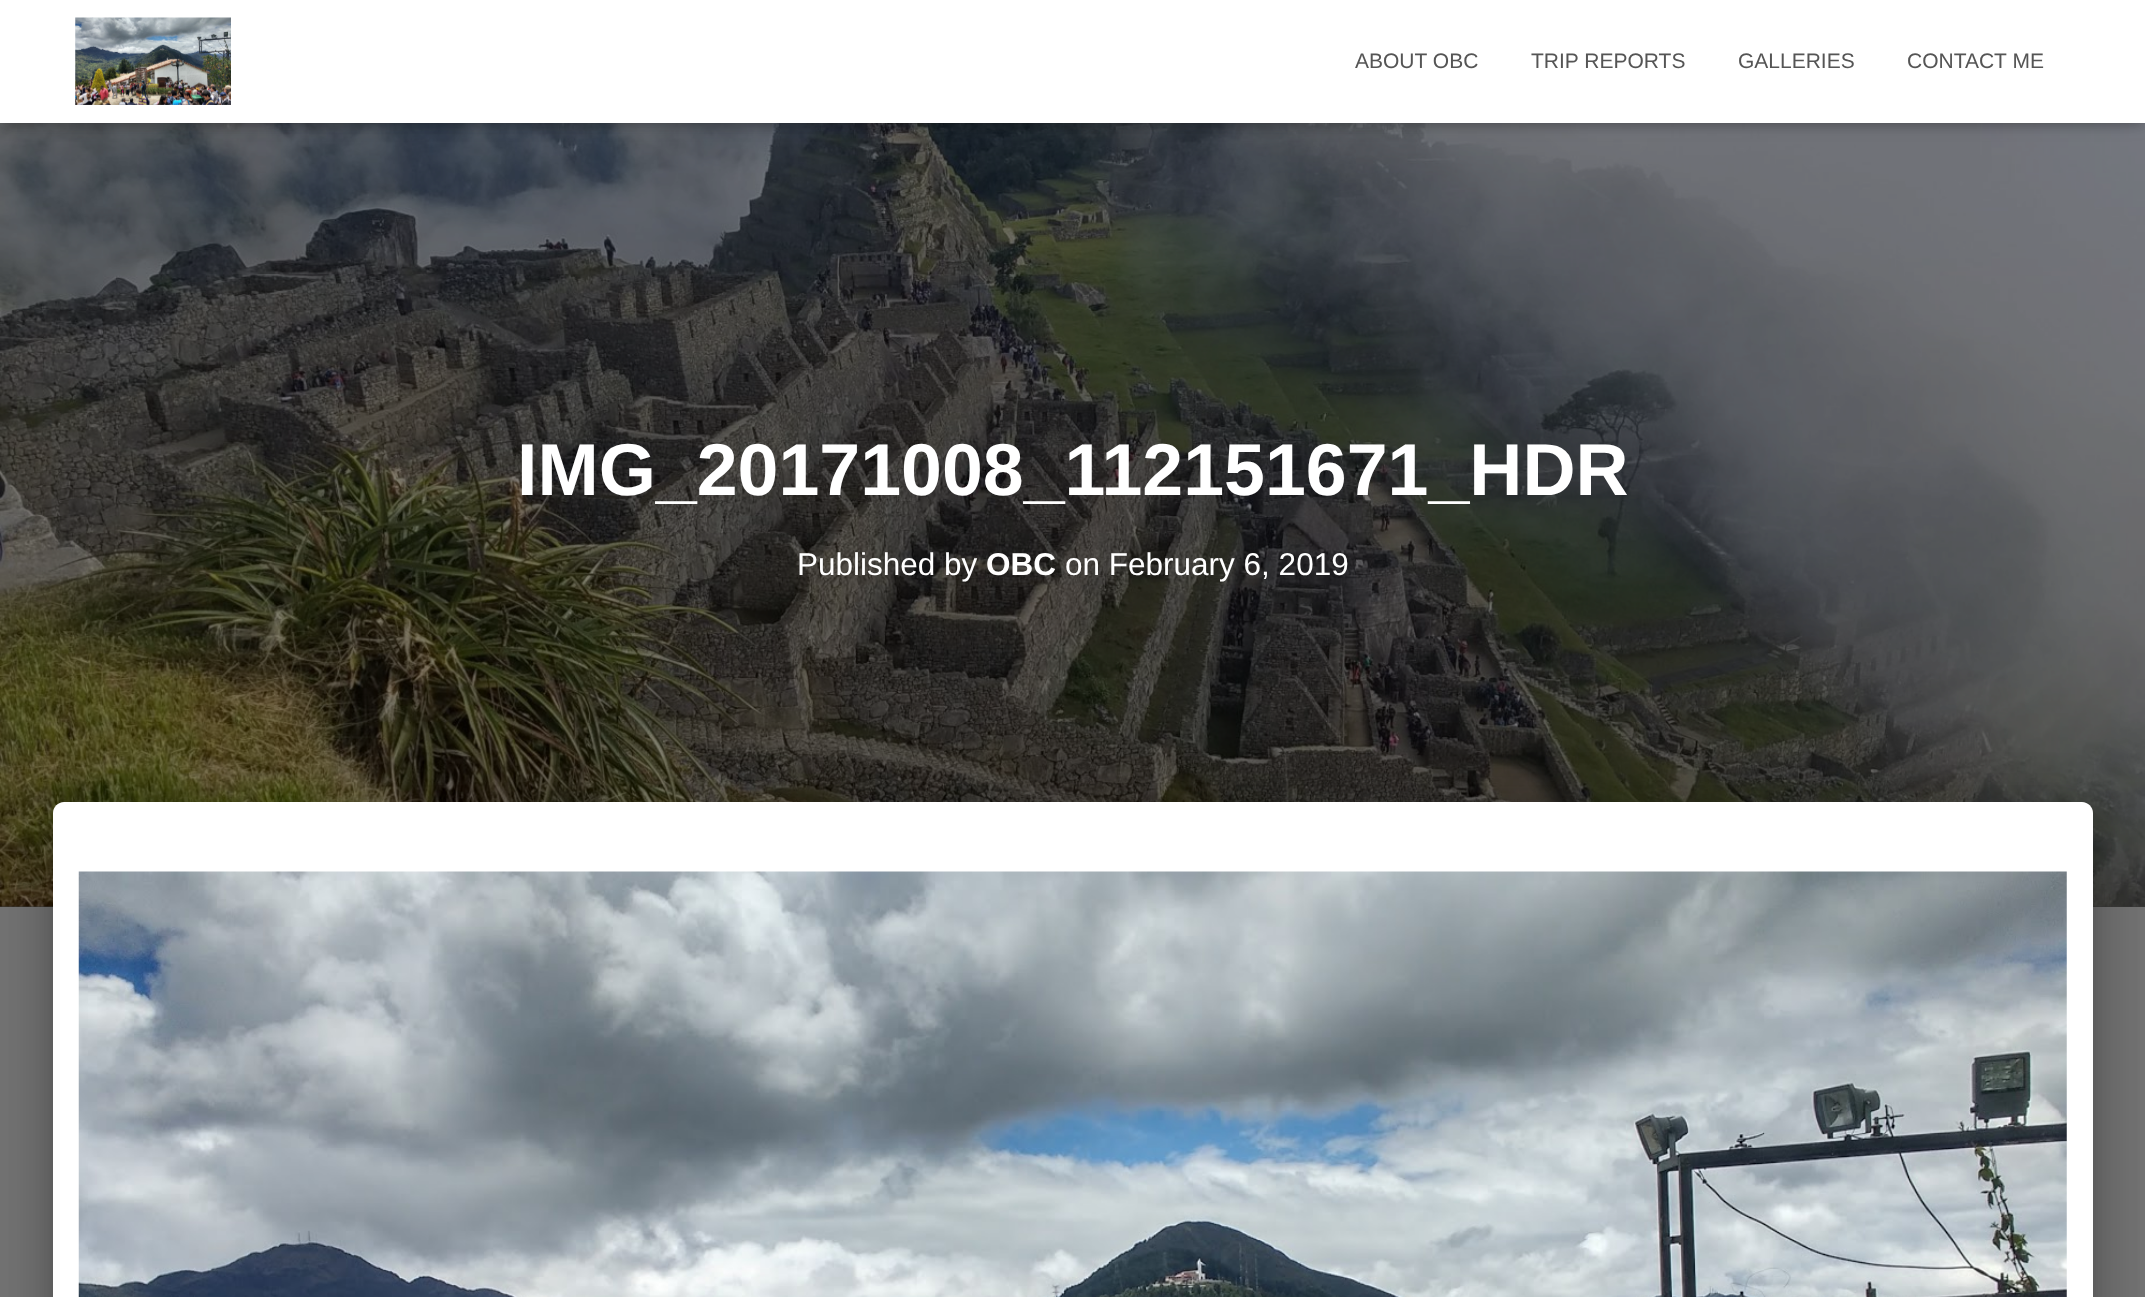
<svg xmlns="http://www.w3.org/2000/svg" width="2145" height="1297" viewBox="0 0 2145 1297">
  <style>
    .t1 { font: 21px Liberation Sans; fill: #555; }
    .t2 { font: bold 73.5px Liberation Sans; fill: #fff; }
    .t3 { font: 31.5px Liberation Sans; fill: #fff; }
    .t4 { font: bold 31.5px Liberation Sans; fill: #fff; }
  </style>
  <rect width="100%" height="100%" fill="#727272"/>
  <rect x="0" y="906" width="2145" height="1" fill="#393939"/>
  <image x="0" y="123" width="2145" height="784" href="images/2.png"/>
  <rect x="4" y="11" width="2138" height="115" fill="#0000001a" filter="blur(4.5px)"/>
  <rect x="0" y="2" width="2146" height="122" fill="#0000001f" filter="blur(9px)"/>
  <rect x="11" y="12" width="2124" height="102" fill="#0000006b" filter="blur(9px)"/>
  <rect x="0" y="0" width="2145" height="123" fill="#fff"/>
  <image x="75" y="17" width="156" height="88" href="images/1.png"/>
  <text x="1355" y="68" class="t1">ABOUT OBC</text>
  <text x="1531" y="68" class="t1">TRIP REPORTS</text>
  <text x="1738" y="68" class="t1">GALLERIES</text>
  <text x="1907" y="68" class="t1">CONTACT ME</text>
  <text x="517" y="495" class="t2">IMG_20171008_112151671_HDR</text>
  <text x="797" y="575" class="t3">Published by</text>
  <text x="986" y="575" class="t4">OBC</text>
  <text x="1065" y="575" class="t3">on February 6, 2019</text>
  <rect x="61" y="824" width="2023" height="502" rx="2" fill="#00000033" filter="blur(9px)"/>
  <rect x="44" y="803" width="2058" height="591" rx="19" fill="#0000001f" filter="blur(26px)"/>
  <rect x="49" y="826" width="2048" height="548" rx="14" fill="#00000024" filter="blur(21px)"/>
  <path d="M64 802H2082C2088 802 2093 807 2093 813V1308H53V813C53 807 58 802 64 802Z" fill="#fff"/>
  <image x="78" y="871" width="1989" height="426" href="images/3.png"/>
</svg>
